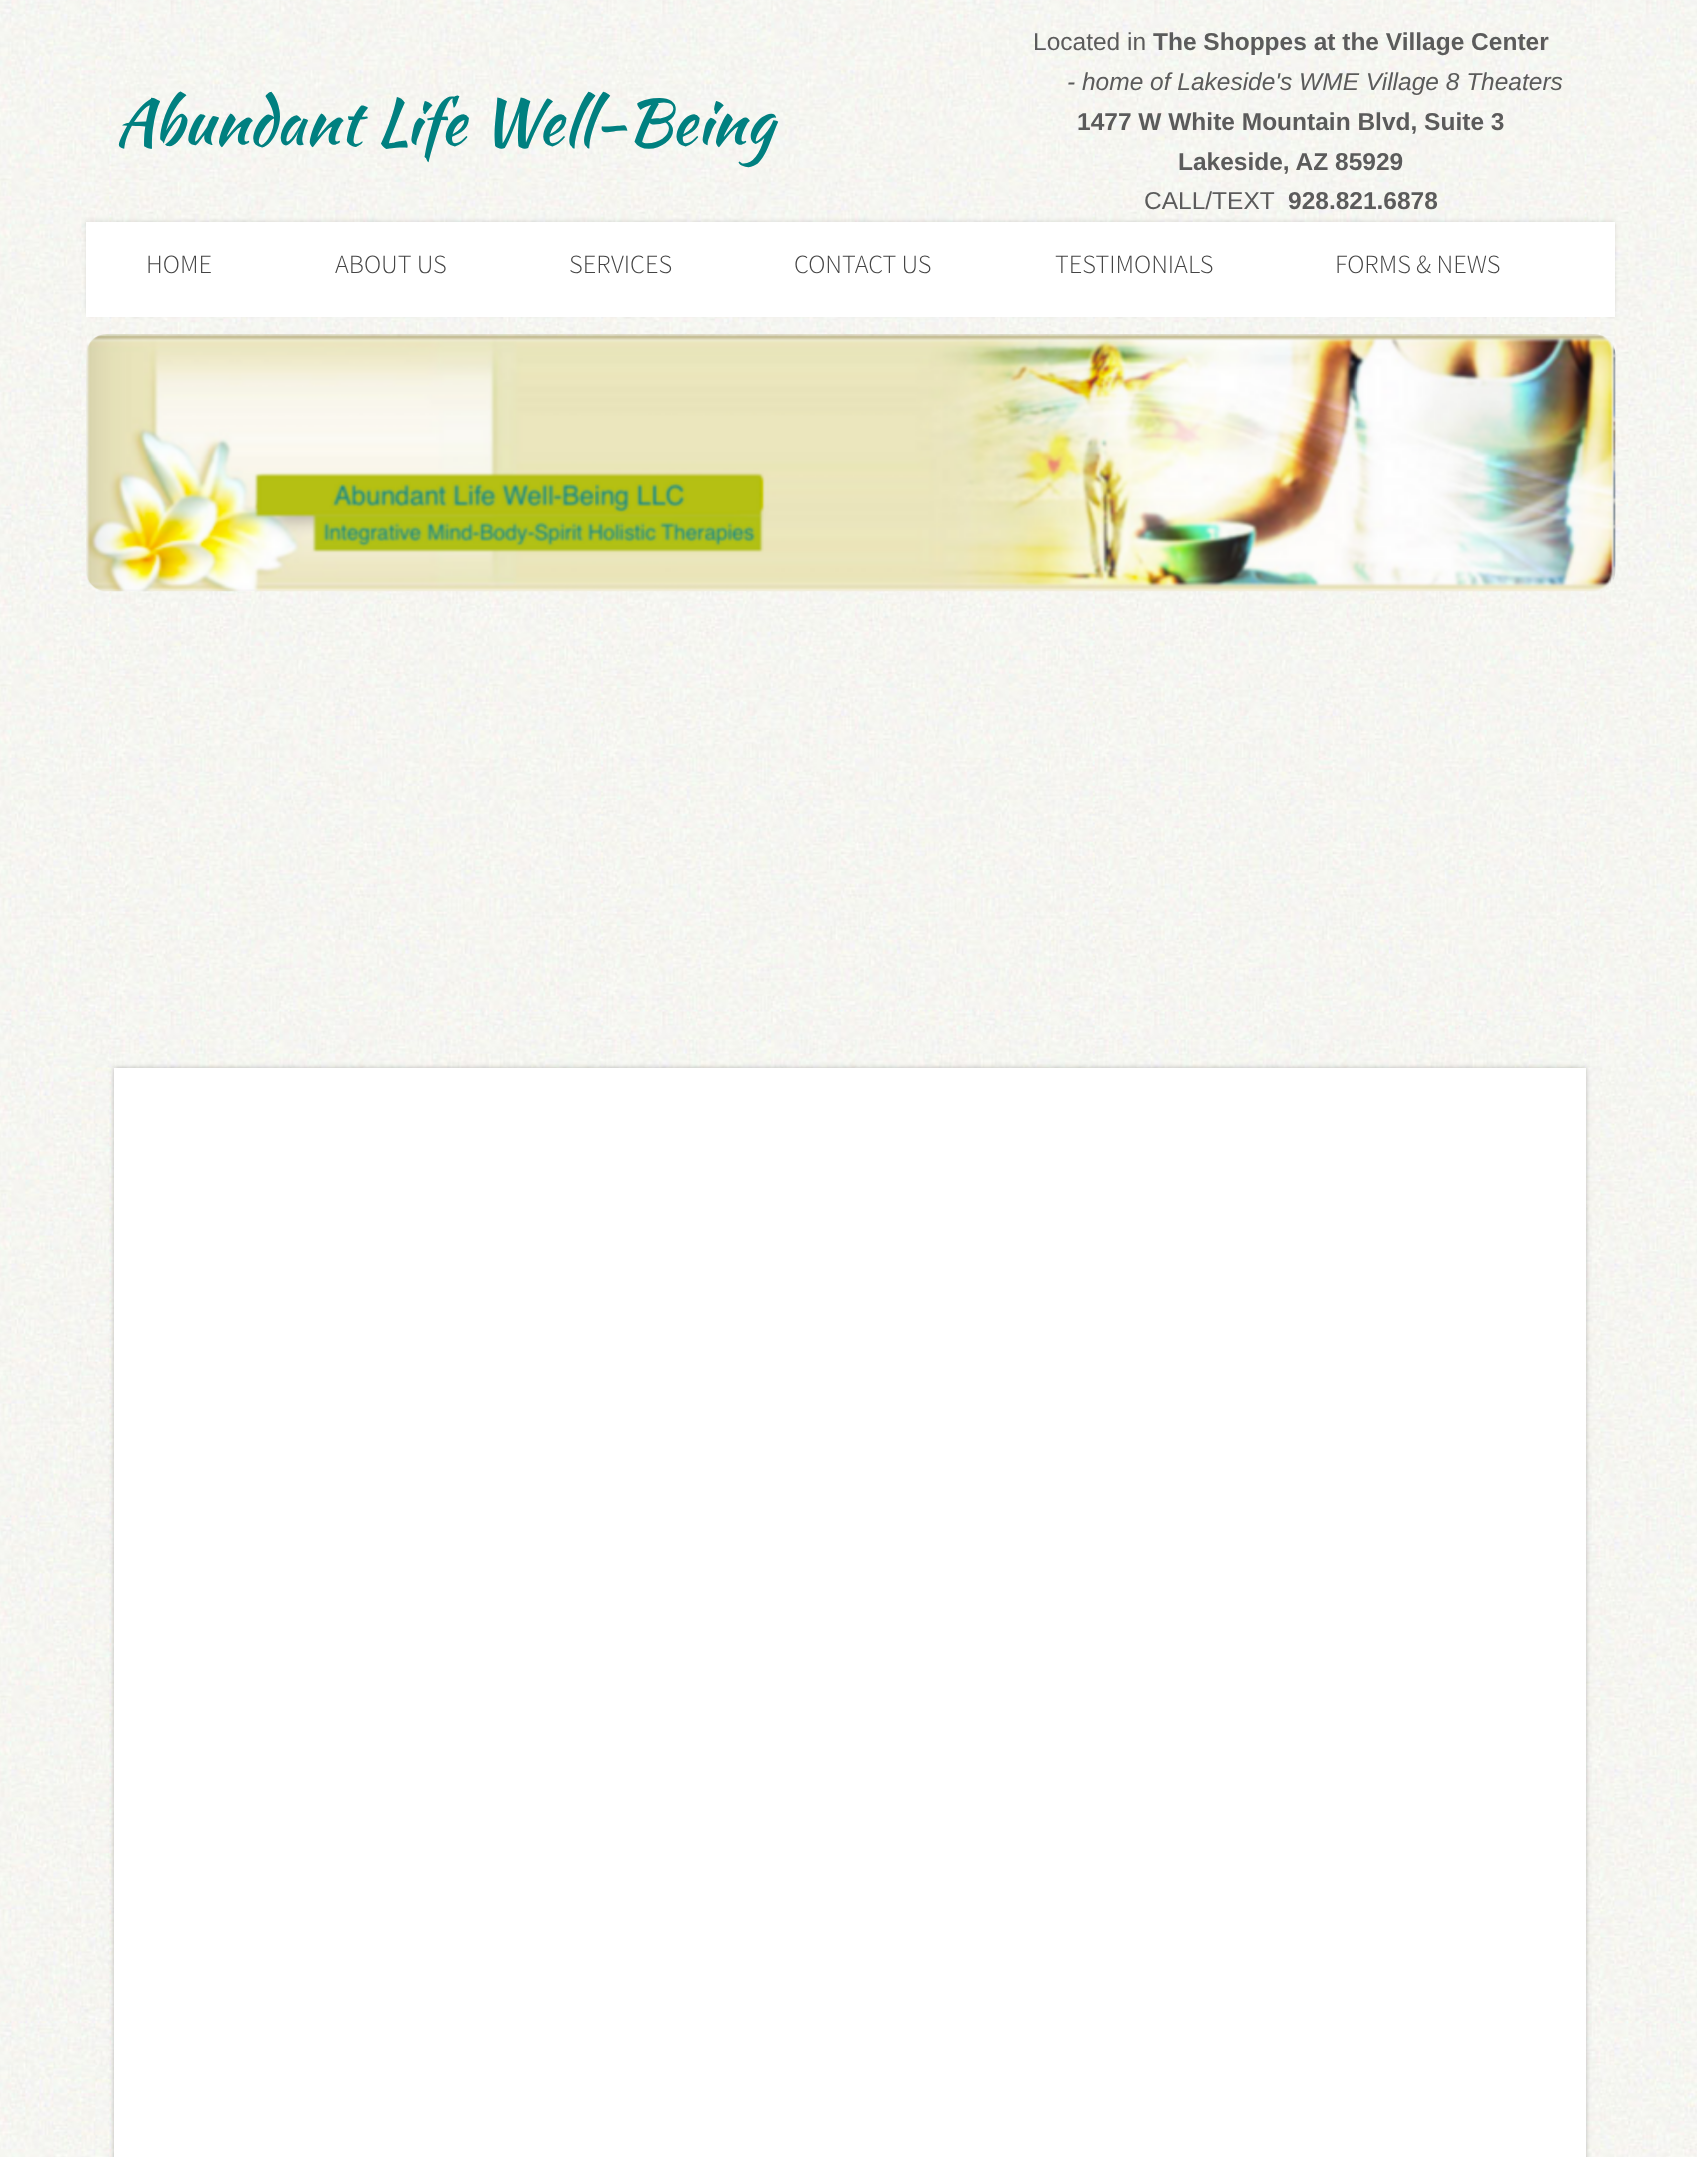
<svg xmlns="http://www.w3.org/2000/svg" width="1697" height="2157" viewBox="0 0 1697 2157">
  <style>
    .t1 { font: 63px Kaushan Script; fill: #008080; }
    .t2 { font: 24.5px Liberation Sans; fill: #5b5b5b; }
    .t3 { font: bold 24.5px Liberation Sans; fill: #5b5b5b; }
    .t4 { font: italic 24.5px Liberation Sans; fill: #5b5b5b; }
    .t5 { font: 300 26.25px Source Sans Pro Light; fill: #444; }
  </style>
  <rect width="100%" height="100%" fill="#fff"/>
  <image x="0" y="0" width="1697" height="2157" href="images/1.png"/>
  <rect x="114" y="1068" width="1472" height="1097" fill="#3232324d" filter="blur(2.5px)"/>
  <rect x="114" y="1068" width="1472" height="1089" fill="#fff"/>
  <text x="115" y="144" class="t1">Abundant Li</text>
  <text x="419" y="144" class="t1">fe Well-Being</text>
  <text x="1033" y="50" class="t2">Located in</text>
  <text x="1153" y="50" class="t3">The Shoppes at the Village Center</text>
  <text x="1067" y="90" class="t4">- home of Lakeside's WME Village 8 Theaters</text>
  <text x="1077" y="130" class="t3">1477 W White Mountain Blvd, Suite 3</text>
  <text x="1178" y="170" class="t3">Lakeside, AZ 85929</text>
  <text x="1144" y="209" class="t2">CALL/TEXT</text>
  <text x="1288" y="209" class="t3">928.821.6878</text>
  <rect x="86" y="221" width="1529" height="94" fill="#0000001a" filter="blur(2px)"/>
  <rect x="86" y="222" width="1529" height="95" fill="#fff"/>
  <text x="146" y="273" class="t5">HOME</text>
  <text x="335" y="273" class="t5">ABOUT US</text>
  <text x="569" y="273" class="t5">SERVICES</text>
  <text x="794" y="273" class="t5">CONTACT US</text>
  <text x="1055" y="273" class="t5">TESTIMONIALS</text>
  <text x="1335" y="273" class="t5">FORMS &amp; NEWS</text>
  <image x="86" y="334" width="1530" height="258" href="images/2.png"/>
</svg>
